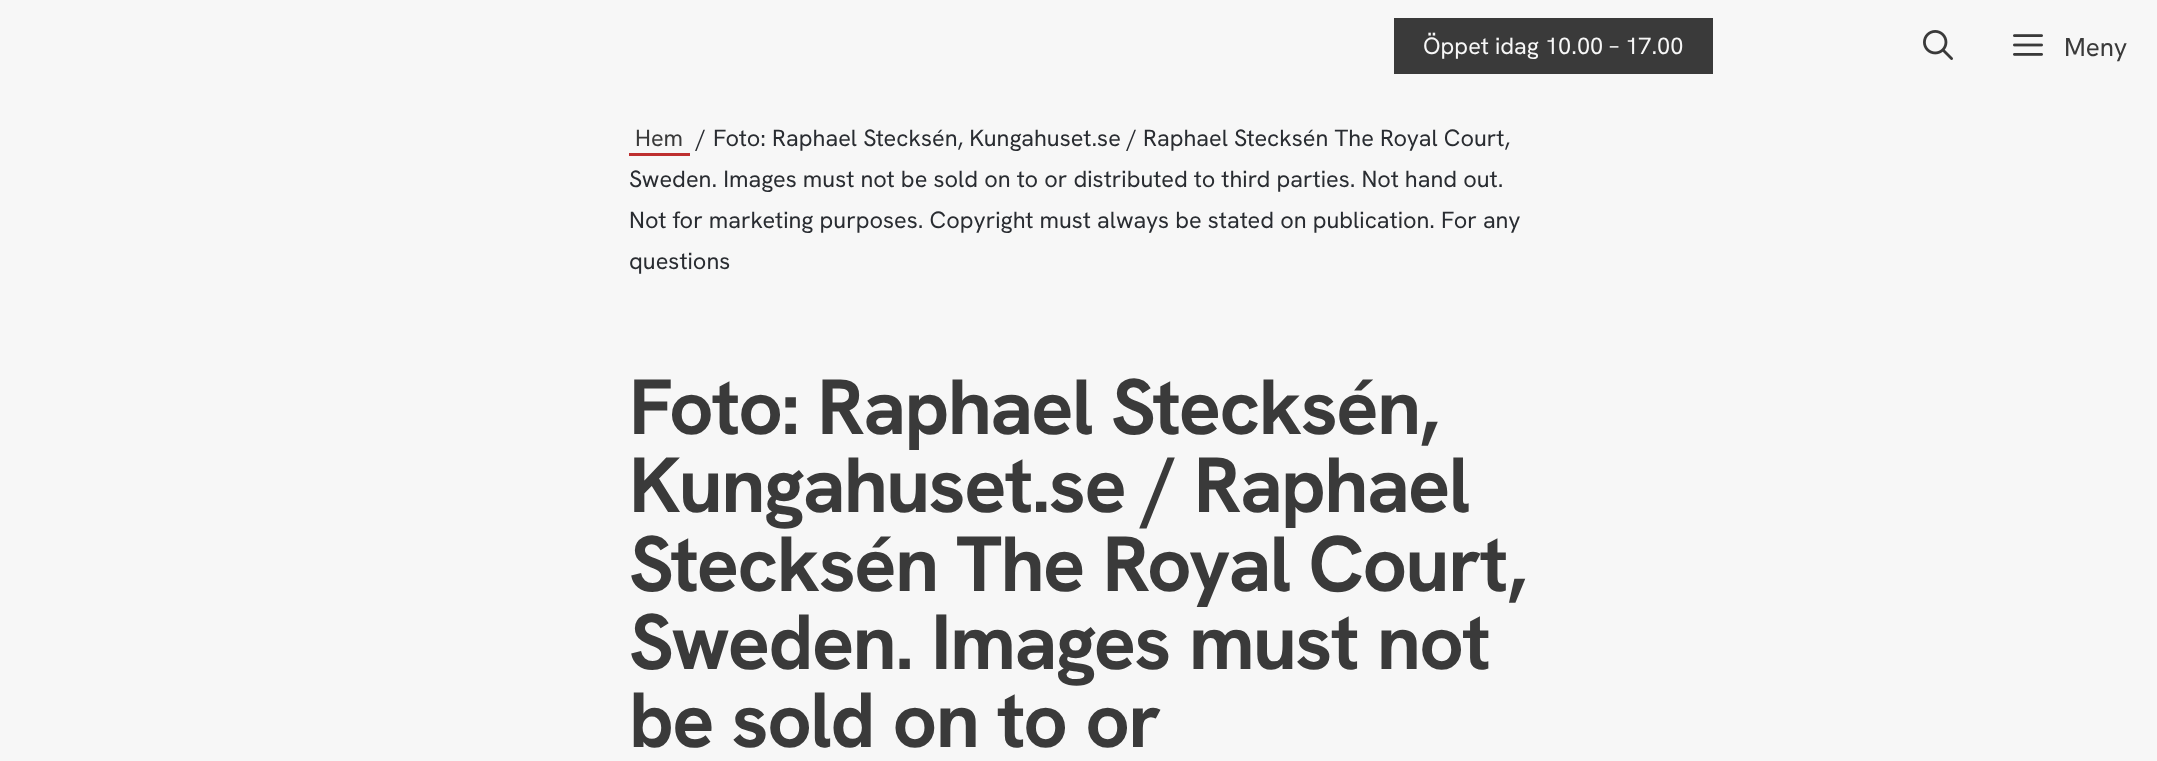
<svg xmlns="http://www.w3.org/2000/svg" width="2157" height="761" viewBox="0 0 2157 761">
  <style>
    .t1 { font: 23.5px Hanken Grotesk; fill: #f7f7f7; }
    .t2 { font: 26px Hanken Grotesk; fill: #3a3a3a; }
    .t3 { font: 23.5px Hanken Grotesk; fill: #3a3a3a; }
    .t4 { font: 23.5px Hanken Grotesk; fill: #292c31; }
    .t5 { font: bold 78.25px Hanken Grotesk; letter-spacing: -1.6px; fill: #3a3a3a; }
  </style>
  <rect width="100%" height="100%" fill="#f7f7f7"/>
  <rect x="1394" y="18" width="319" height="56" fill="#3a3a3a"/>
  <text x="1423" y="54" class="t1">Öppet idag 10.00 – 17.00</text>
  <image x="1923" y="30" width="30" height="30" href="images/1.png"/>
  <image x="2013" y="34" width="30" height="22" href="images/2.png"/>
  <text x="2064" y="56" class="t2">Meny</text>
  <text x="635" y="146" class="t3">Hem</text>
  <rect x="629" y="153" width="61" height="3" fill="#be2f2f"/>
  <text x="696" y="146" class="t4">/</text>
  <text x="713" y="146" class="t4">Foto: Raphael Stecksén, Kungahuset.se / Raphael Stecksén The Royal Court,</text>
  <text x="629" y="187" class="t4">Sweden. Images must not be sold on to or distributed to third parties. Not hand out.</text>
  <text x="629" y="228" class="t4">Not for marketing purposes. Copyright must always be stated on publication. For any</text>
  <text x="629" y="269" class="t4">questions</text>
  <text x="629" y="434" class="t5">Foto: Raphael Stecksén,</text>
  <text x="629" y="512" class="t5">Kungahuset.se / Raphael</text>
  <text x="629" y="591" class="t5">Stecksén The Royal Court,</text>
  <text x="629" y="669" class="t5">Sweden. Images must not</text>
  <text x="629" y="747" class="t5">be sold on to or</text>
</svg>
